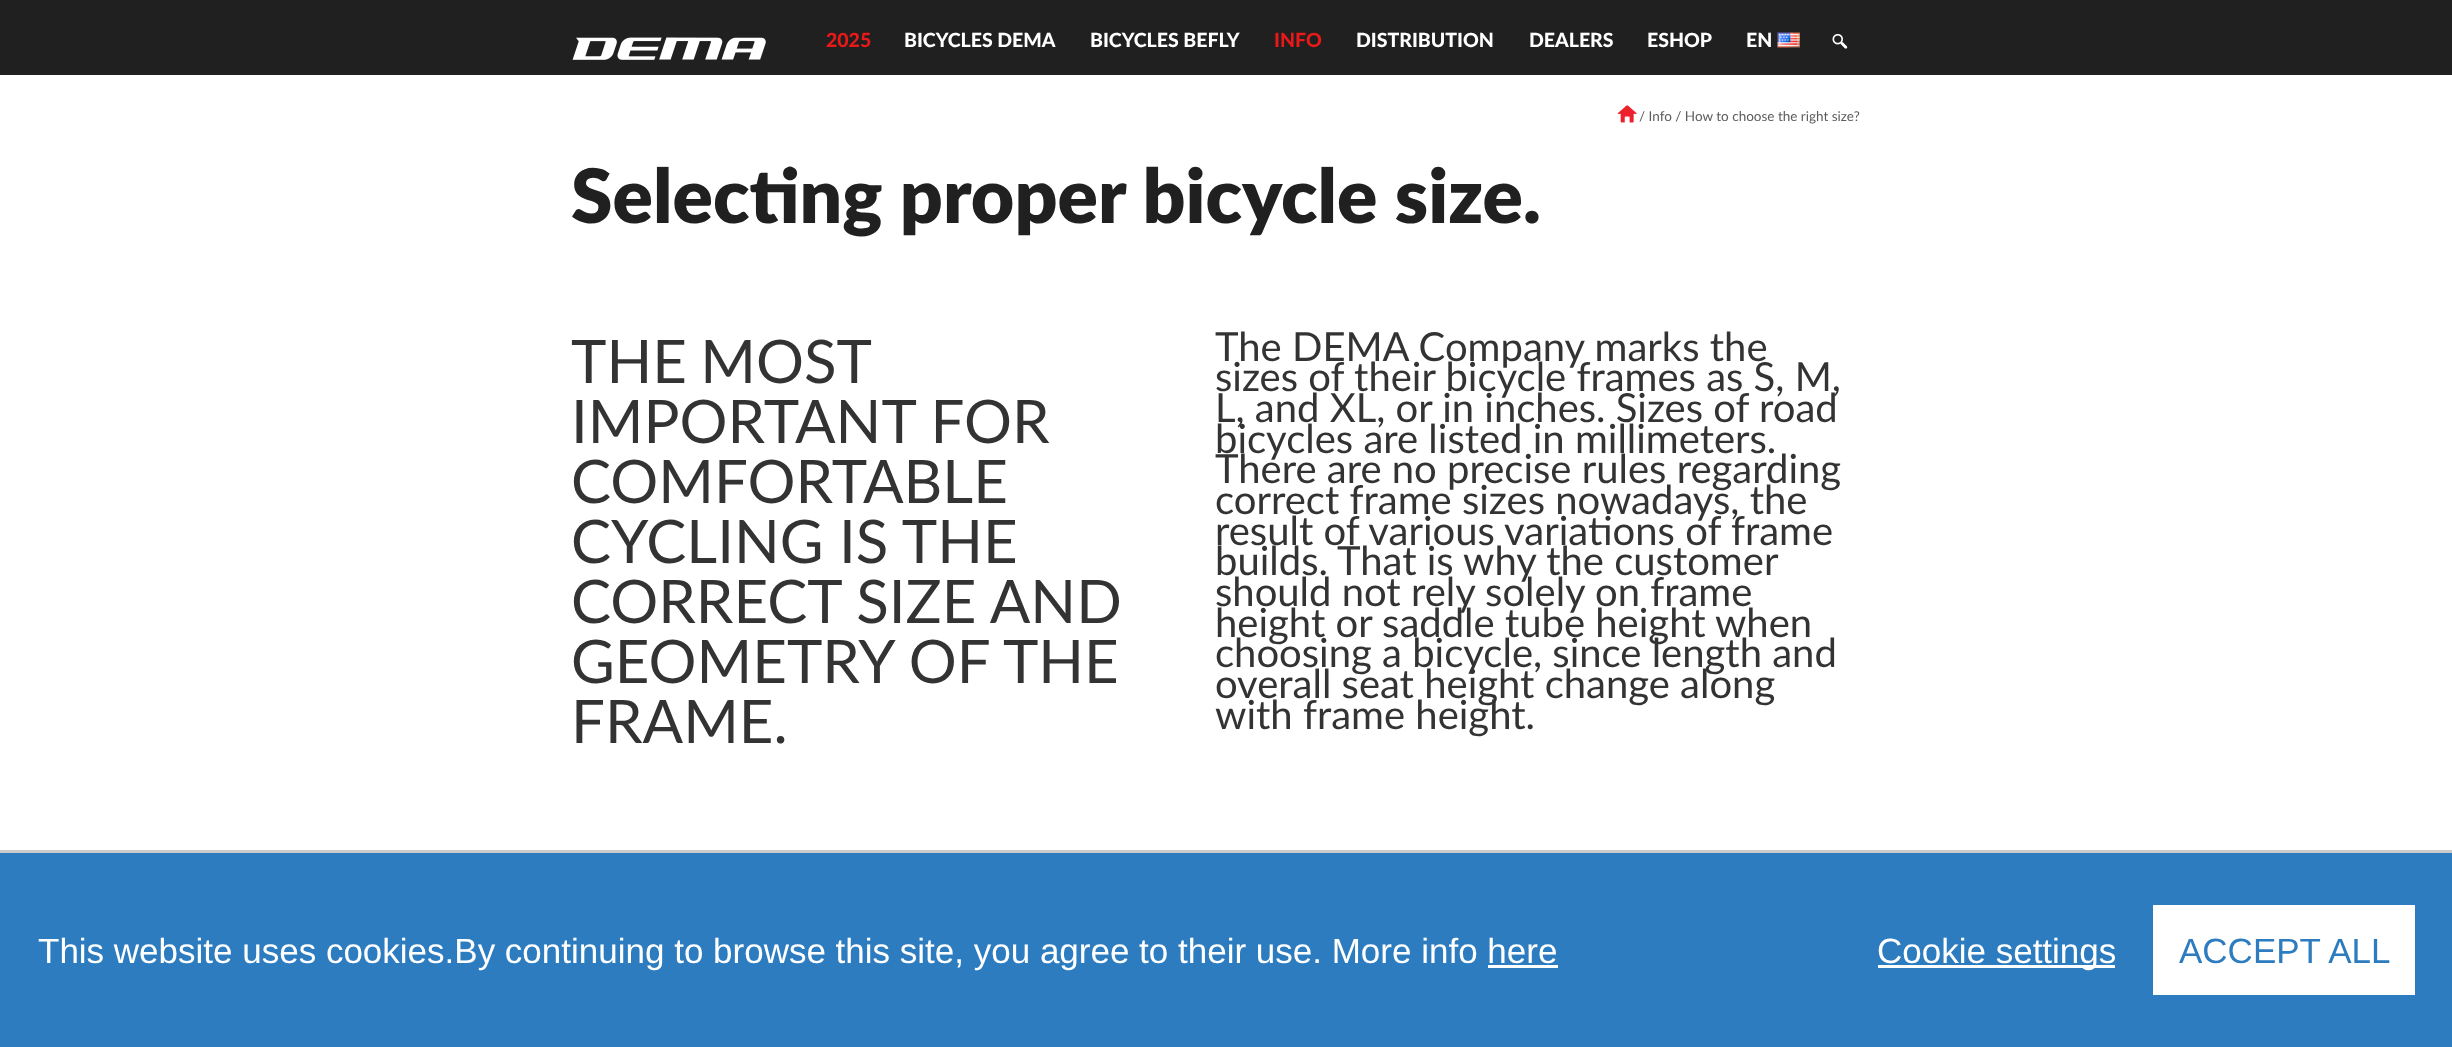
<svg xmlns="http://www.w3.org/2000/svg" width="2452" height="1047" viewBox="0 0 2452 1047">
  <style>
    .t1 { font: 900 19.5px 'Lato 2'; fill: #e91919; }
    .t2 { font: 900 19.5px 'Lato 2'; fill: #fff; }
    .t3 { font: 13.5px Lato; fill: #5c5c5c; }
    .t4 { font: 900 75px Lato; fill: #202020; }
    .t5 { font: 60px Lato; fill: #333; }
    .t6 { font: 40px Lato; fill: #333; }
    .t7 { font: 35px Liberation Sans; fill: #fff; }
    .t8 { font: 35px Liberation Sans; fill: #2c7cbf; }
  </style>
  <rect width="100%" height="100%" fill="#fff"/>
  <rect x="0" y="0" width="2452" height="75" fill="#202020"/>
  <image x="572" y="37" width="194" height="23" href="images/1.png"/>
  <text x="826" y="47" class="t1">2025</text>
  <text x="904" y="47" class="t2">BICYCLES DEMA</text>
  <text x="1090" y="47" class="t2">BICYCLES BEFLY</text>
  <text x="1274" y="47" class="t1">INFO</text>
  <text x="1356" y="47" class="t2">DISTRIBUTION</text>
  <text x="1529" y="47" class="t2">DEALERS</text>
  <text x="1647" y="47" class="t2">ESHOP</text>
  <text x="1746" y="47" class="t2">EN</text>
  <image x="1777" y="32" width="23" height="16" href="images/2.png"/>
  <image x="1832" y="33" width="16" height="16" href="images/3.png"/>
  <image x="1617" y="105" width="20" height="18" href="images/4.png"/>
  <text x="1639" y="121" class="t3">/ Info / How to choose the right size?</text>
  <rect x="0" y="850" width="2452" height="3" fill="#ccc"/>
  <text x="571" y="223" class="t4">Selecting proper bicycle size.</text>
  <text x="571" y="383" word-spacing="-2" class="t5">THE MOST</text>
  <text x="571" y="443" class="t5">IMPORTANT FOR</text>
  <text x="571" y="503" class="t5">COMFORTABLE</text>
  <text x="571" y="563" class="t5">CYCLING IS THE</text>
  <text x="571" y="623" class="t5">CORRECT SIZE AND</text>
  <text x="571" y="683" class="t5">GEOMETRY OF THE</text>
  <text x="571" y="743" class="t5">FRAME.</text>
  <text x="1215" y="361" class="t6">The DEMA Company marks the</text>
  <text x="1215" y="391" class="t6">sizes of their bicycle frames as S, M,</text>
  <text x="1215" y="422" class="t6">L, and XL, or in inches. Sizes of road</text>
  <text x="1215" y="453" class="t6">bicycles are listed in millimeters.</text>
  <text x="1215" y="483" class="t6">There are no precise rules regarding</text>
  <text x="1215" y="514" class="t6">correct frame sizes nowadays, the</text>
  <text x="1215" y="545" class="t6">result of various variations of frame</text>
  <text x="1215" y="575" class="t6">builds. That is why the customer</text>
  <text x="1215" y="606" class="t6">should not rely solely on frame</text>
  <text x="1215" y="637" class="t6">height or saddle tube height when</text>
  <text x="1215" y="667" class="t6">choosing a bicycle, since length and</text>
  <text x="1215" y="698" class="t6">overall seat height change along</text>
  <text x="1215" y="729" class="t6">with frame height.</text>
  <rect x="0" y="853" width="2452" height="194" fill="#2c7cbf"/>
  <text x="38" y="963" class="t7">This website uses cookies.By continuing to browse this site, you agree to their use. More info here</text>
  <rect x="1488" y="965" width="70" height="3" fill="#fff"/>
  <rect x="1878" y="965" width="237" height="3" fill="#fff"/>
  <text x="1877" y="963" class="t7">Cookie settings</text>
  <rect x="2153" y="905" width="262" height="90" fill="#fff"/>
  <text x="2179" y="963" class="t8">ACCEPT ALL</text>
</svg>
